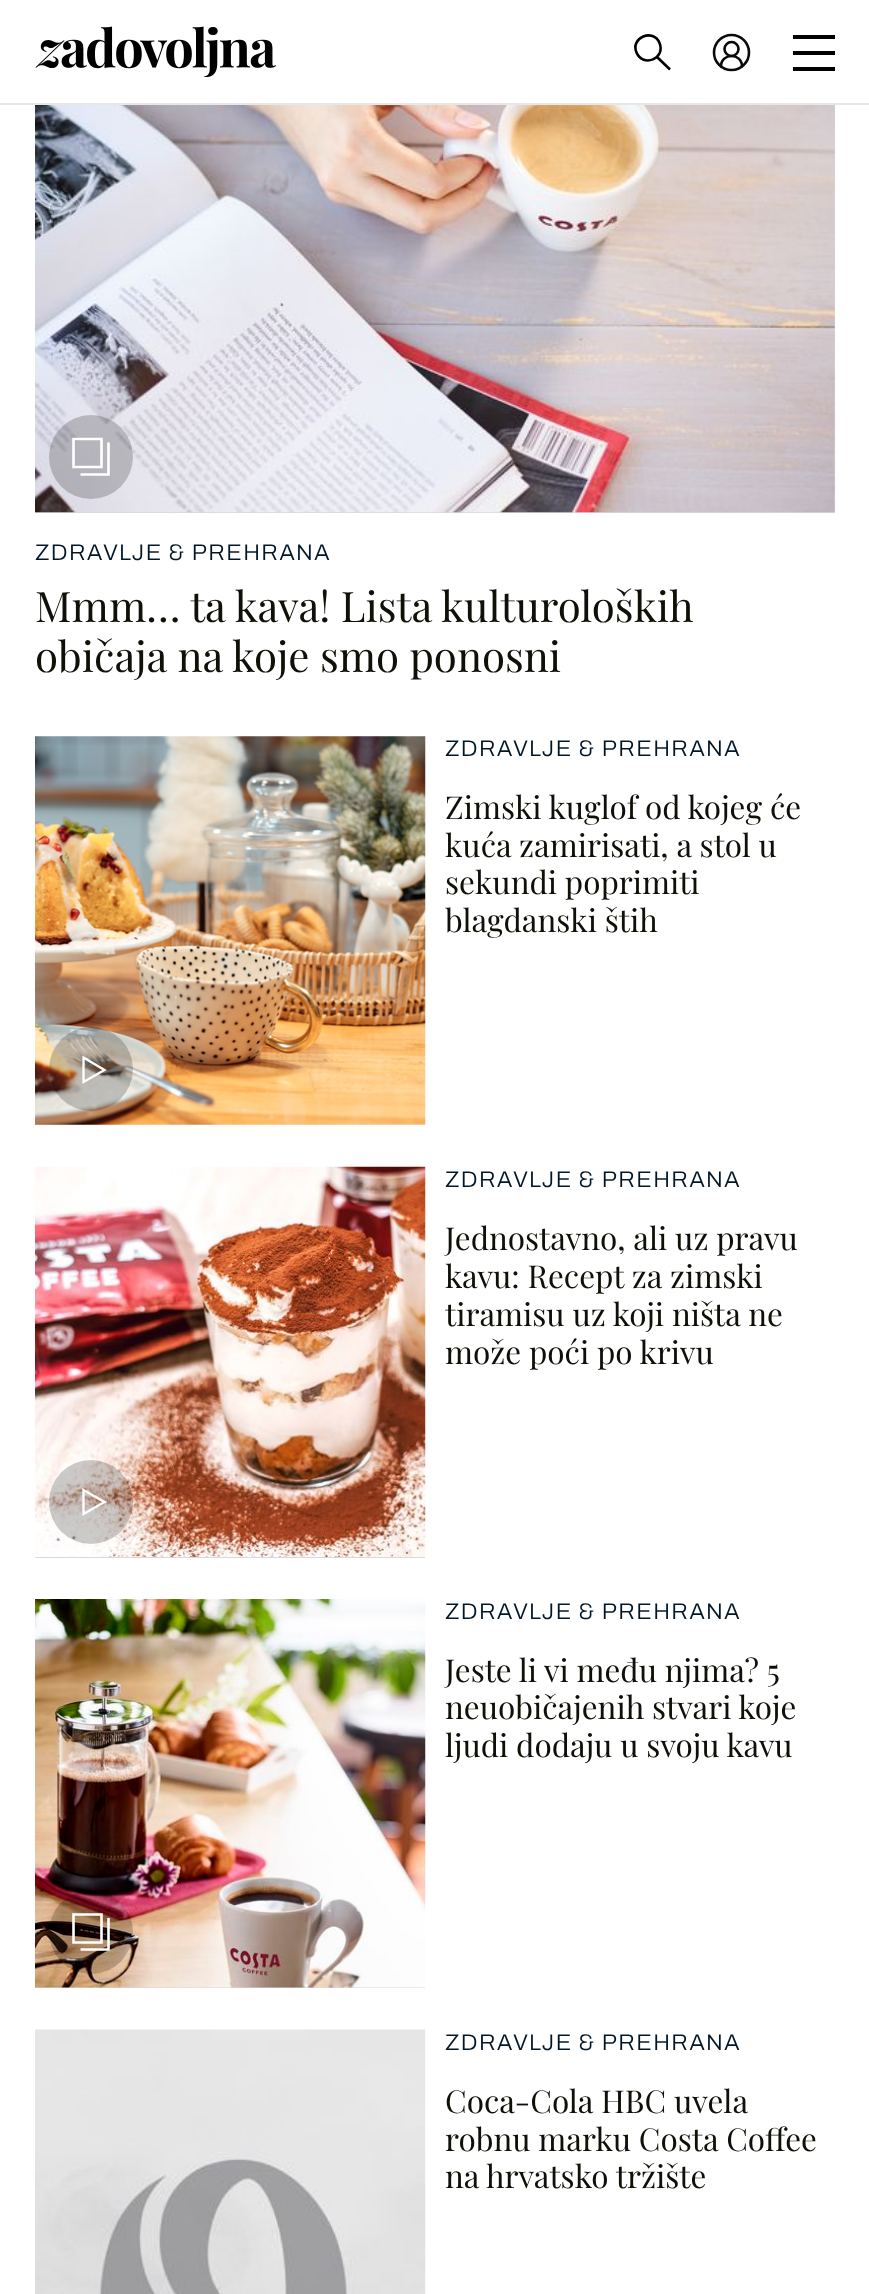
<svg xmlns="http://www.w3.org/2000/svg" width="869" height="2294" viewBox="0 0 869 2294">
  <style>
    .t1 { font: 300 22.75px Archivo; letter-spacing: 1.4px; fill: #011627; }
    .t2 { font: 42px Playfair Display; fill: #0f1108; }
    .t3 { font: 31.5px Playfair Display; fill: #0f1108; }
  </style>
  <rect width="100%" height="100%" fill="#fff"/>
  <rect x="0" y="103" width="869" height="2" fill="#e8e8e8"/>
  <image x="35" y="26" width="241" height="51" href="images/1.png"/>
  <path d="M636.5 52.5C643 68 666 58.5 659.5 43C653.5 28 630 37.5 636.5 52.5ZM670 69.5L656.5 56.5" fill="none" stroke="#000" stroke-width="2.6"/>
  <path d="M742 66.5C742 52.5 721 52.5 721 66.5" fill="none" stroke="#0a0a0a" stroke-width="2.6" stroke-linecap="round" stroke-linejoin="round"/>
  <circle cx="731.5" cy="49" r="7" fill="none" stroke="#0a0a0a" stroke-width="2.6"/>
  <circle cx="731.5" cy="52.5" r="17.5" fill="none" stroke="#0a0a0a" stroke-width="2.6"/>
  <rect x="793" y="51" width="42" height="4" fill="#000"/>
  <rect x="793" y="35" width="42" height="4" fill="#000"/>
  <rect x="793" y="67" width="42" height="4" fill="#000"/>
  <rect x="35" y="105" width="800" height="408" fill="#d9d9d9"/>
  <image x="35" y="105" width="800" height="408" href="images/2.png"/>
  <circle cx="91" cy="457" r="42" fill="#00000033"/>
  <path d="M101.5 439V467H73.5V439ZM108.5 442.5V474.5H80.5" fill="none" stroke="#fff" stroke-width="2.6"/>
  <text x="35" y="560" class="t1">ZDRAVLJE &amp; PREHRANA</text>
  <text x="35" y="622" class="t2">Mmm… ta kava! Lista kulturoloških</text>
  <text x="35" y="672" class="t2">običaja na koje smo ponosni</text>
  <image x="35" y="736" width="391" height="389" href="images/3.png"/>
  <circle cx="91" cy="1069" r="42" fill="#00000033"/>
  <path d="M83.5 1057.5L104.5 1070L83.5 1082Z" fill="none" stroke="#fff" stroke-width="2.3"/>
  <text x="445" y="756" class="t1">ZDRAVLJE &amp; PREHRANA</text>
  <text x="445" y="819" class="t3">Zimski kuglof od kojeg će</text>
  <text x="445" y="857" class="t3">kuća zamirisati, a stol u</text>
  <text x="445" y="894" class="t3">sekundi poprimiti</text>
  <text x="445" y="932" class="t3">blagdanski štih</text>
  <rect x="35" y="1557" width="390" height="1" fill="#d9d9d9"/>
  <image x="35" y="1166" width="391" height="391" href="images/4.png"/>
  <circle cx="91" cy="1502" r="42" fill="#00000033"/>
  <path d="M83.5 1490L104.5 1502L83.5 1514Z" fill="none" stroke="#fff" stroke-width="2.3"/>
  <text x="445" y="1187" class="t1">ZDRAVLJE &amp; PREHRANA</text>
  <text x="445" y="1250" class="t3">Jednostavno, ali uz pravu</text>
  <text x="445" y="1288" class="t3">kavu: Recept za zimski</text>
  <text x="445" y="1326" class="t3">tiramisu uz koji ništa ne</text>
  <text x="445" y="1364" class="t3">može poći po krivu</text>
  <rect x="35" y="1987" width="390" height="1" fill="#d9d9d9"/>
  <image x="35" y="1599" width="391" height="389" href="images/5.png"/>
  <circle cx="91" cy="1932" r="42" fill="#00000033"/>
  <path d="M101.5 1914.5V1942.5H73.5V1914.5ZM108.5 1918V1949.5H80.5" fill="none" stroke="#fff" stroke-width="2.6"/>
  <text x="445" y="1619" class="t1">ZDRAVLJE &amp; PREHRANA</text>
  <text x="445" y="1682" class="t3">Jeste li vi među njima? 5</text>
  <text x="445" y="1719" class="t3">neuobičajenih stvari koje</text>
  <text x="445" y="1757" class="t3">ljudi dodaju u svoju kavu</text>
  <image x="35" y="2029" width="391" height="265" href="images/6.png"/>
  <text x="445" y="2050" class="t1">ZDRAVLJE &amp; PREHRANA</text>
  <text x="445" y="2113" class="t3">Coca-Cola HBC uvela</text>
  <text x="445" y="2151" class="t3">robnu marku Costa Coffee</text>
  <text x="445" y="2188" class="t3">na hrvatsko tržište</text>
</svg>
